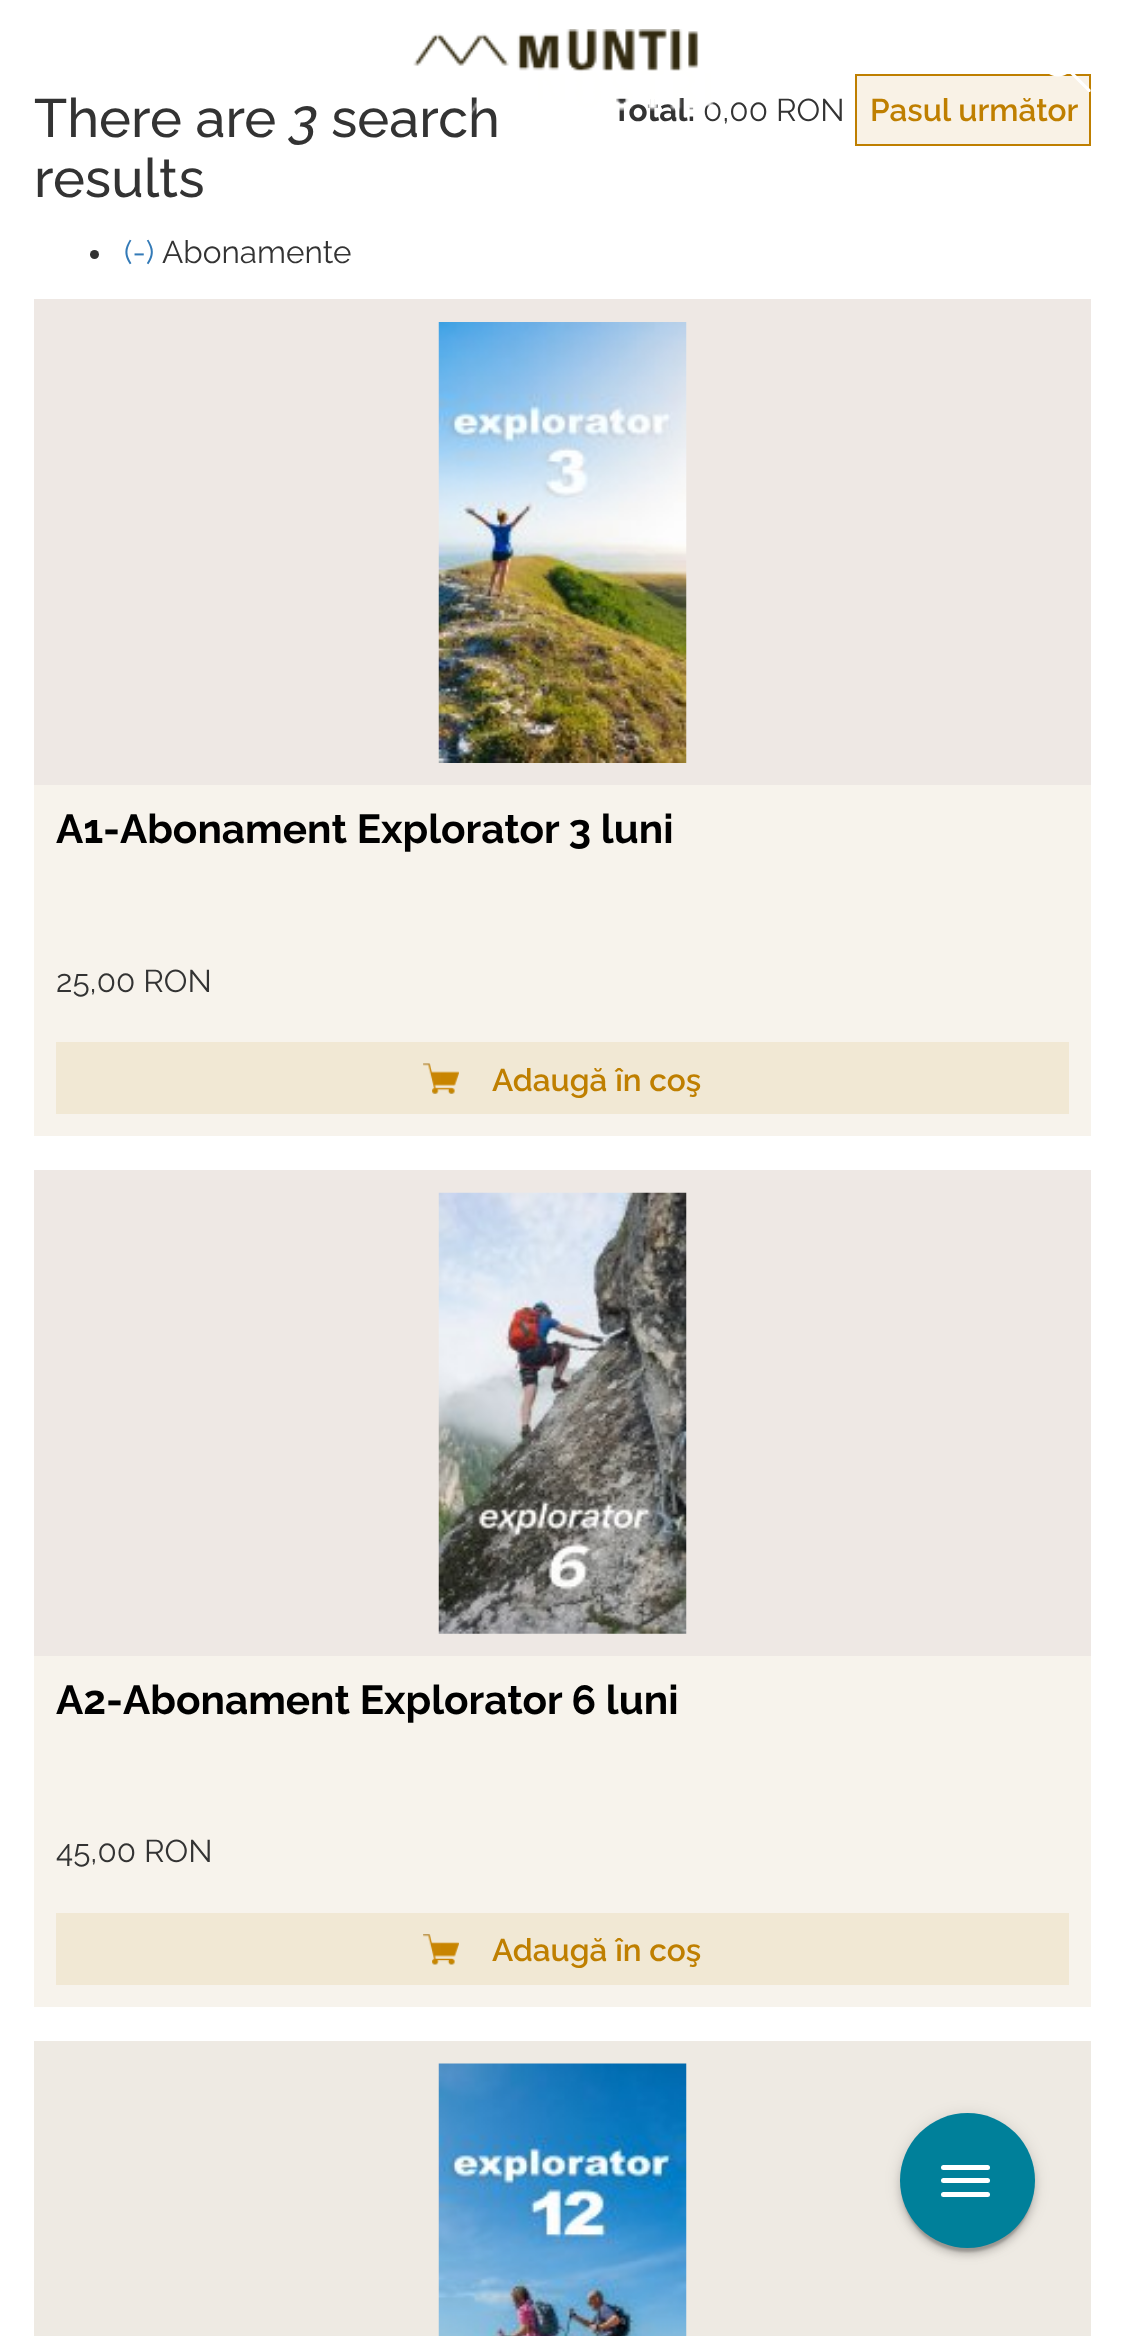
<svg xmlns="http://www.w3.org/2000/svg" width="1123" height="2336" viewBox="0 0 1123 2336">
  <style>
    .t1 { font: 500 54px Raleway; fill: #333; }
    .t2 { font: bold 31.5px Raleway; fill: #333; }
    .t3 { font: 31.5px Raleway; fill: #333; }
    .t4 { font: italic 500 54px Raleway; fill: #333; }
    .t5 { font: 31.5px Raleway; fill: #337ab7; }
    .t6 { font: 600 31.5px Raleway; fill: #bf7f00; }
    .t7 { font: bold 40.5px Raleway; fill: #000; }
  </style>
  <rect width="100%" height="100%" fill="#fff"/>
  <text x="331" y="137" class="t1">search</text>
  <text x="612" y="121" class="t2">Total:</text>
  <text x="703" y="121" class="t3">0,00 RON</text>
  <image x="413" y="29" width="301" height="86" href="images/1.png"/>
  <rect x="856" y="75" width="234" height="70" fill="#f9f2e6" stroke="#bf7f00" stroke-width="2"/>
  <image x="1049" y="74" width="42" height="18" href="images/2.png"/>
  <text x="34" y="137" class="t1">There are</text>
  <text x="290" y="137" class="t4">3</text>
  <text x="34" y="197" class="t1">results</text>
  <circle cx="94.5" cy="254.5" r="4.5" fill="#333"/>
  <text x="124" y="263" class="t5">(-)</text>
  <text x="162" y="263" class="t3">Abonamente</text>
  <text x="870" y="121" class="t6">Pasul următor</text>
  <rect x="34" y="785" width="1057" height="351" fill="#f7f3ec"/>
  <rect x="34" y="299" width="1057" height="486" fill="#eee8e4"/>
  <image x="438" y="322" width="249" height="441" href="images/3.png"/>
  <text x="56" y="843" class="t7">A1-Abonament Explorator 3 luni</text>
  <text x="56" y="992" class="t3">25,00 RON</text>
  <rect x="56" y="1042" width="1013" height="72" fill="#f1e8d4"/>
  <image x="423" y="1063" width="36" height="31" href="images/4.png"/>
  <text x="492" y="1091" class="t6">Adaugă în coş</text>
  <rect x="34" y="1656" width="1057" height="351" fill="#f7f3ec"/>
  <rect x="34" y="1170" width="1057" height="486" fill="#eee8e4"/>
  <image x="438" y="1192" width="249" height="442" href="images/5.png"/>
  <text x="56" y="1714" class="t7">A2-Abonament Explorator 6 luni</text>
  <text x="56" y="1862" class="t3">45,00 RON</text>
  <rect x="56" y="1913" width="1013" height="72" fill="#f1e8d4"/>
  <image x="423" y="1934" width="36" height="31" href="images/6.png"/>
  <text x="492" y="1961" class="t6">Adaugă în coş</text>
  <rect x="34" y="2041" width="1057" height="295" fill="#eeeae3"/>
  <image x="438" y="2063" width="249" height="273" href="images/7.png"/>
  <rect x="902" y="2122" width="131" height="130" rx="65" fill="#00000033" filter="blur(1px)"/>
  <rect x="900" y="2115" width="135" height="135" rx="67.5" fill="#0000001f" filter="blur(8px)"/>
  <rect x="900" y="2120" width="135" height="135" rx="67.5" fill="#00000024" filter="blur(3.5px)"/>
  <circle cx="967.5" cy="2180.5" r="67.5" fill="#00809a"/>
  <rect x="941" y="2165" width="49" height="5" rx="2.5" fill="#fff"/>
  <rect x="941" y="2178" width="49" height="5" rx="2.5" fill="#fff"/>
  <rect x="941" y="2192" width="49" height="5" rx="2.5" fill="#fff"/>
</svg>
